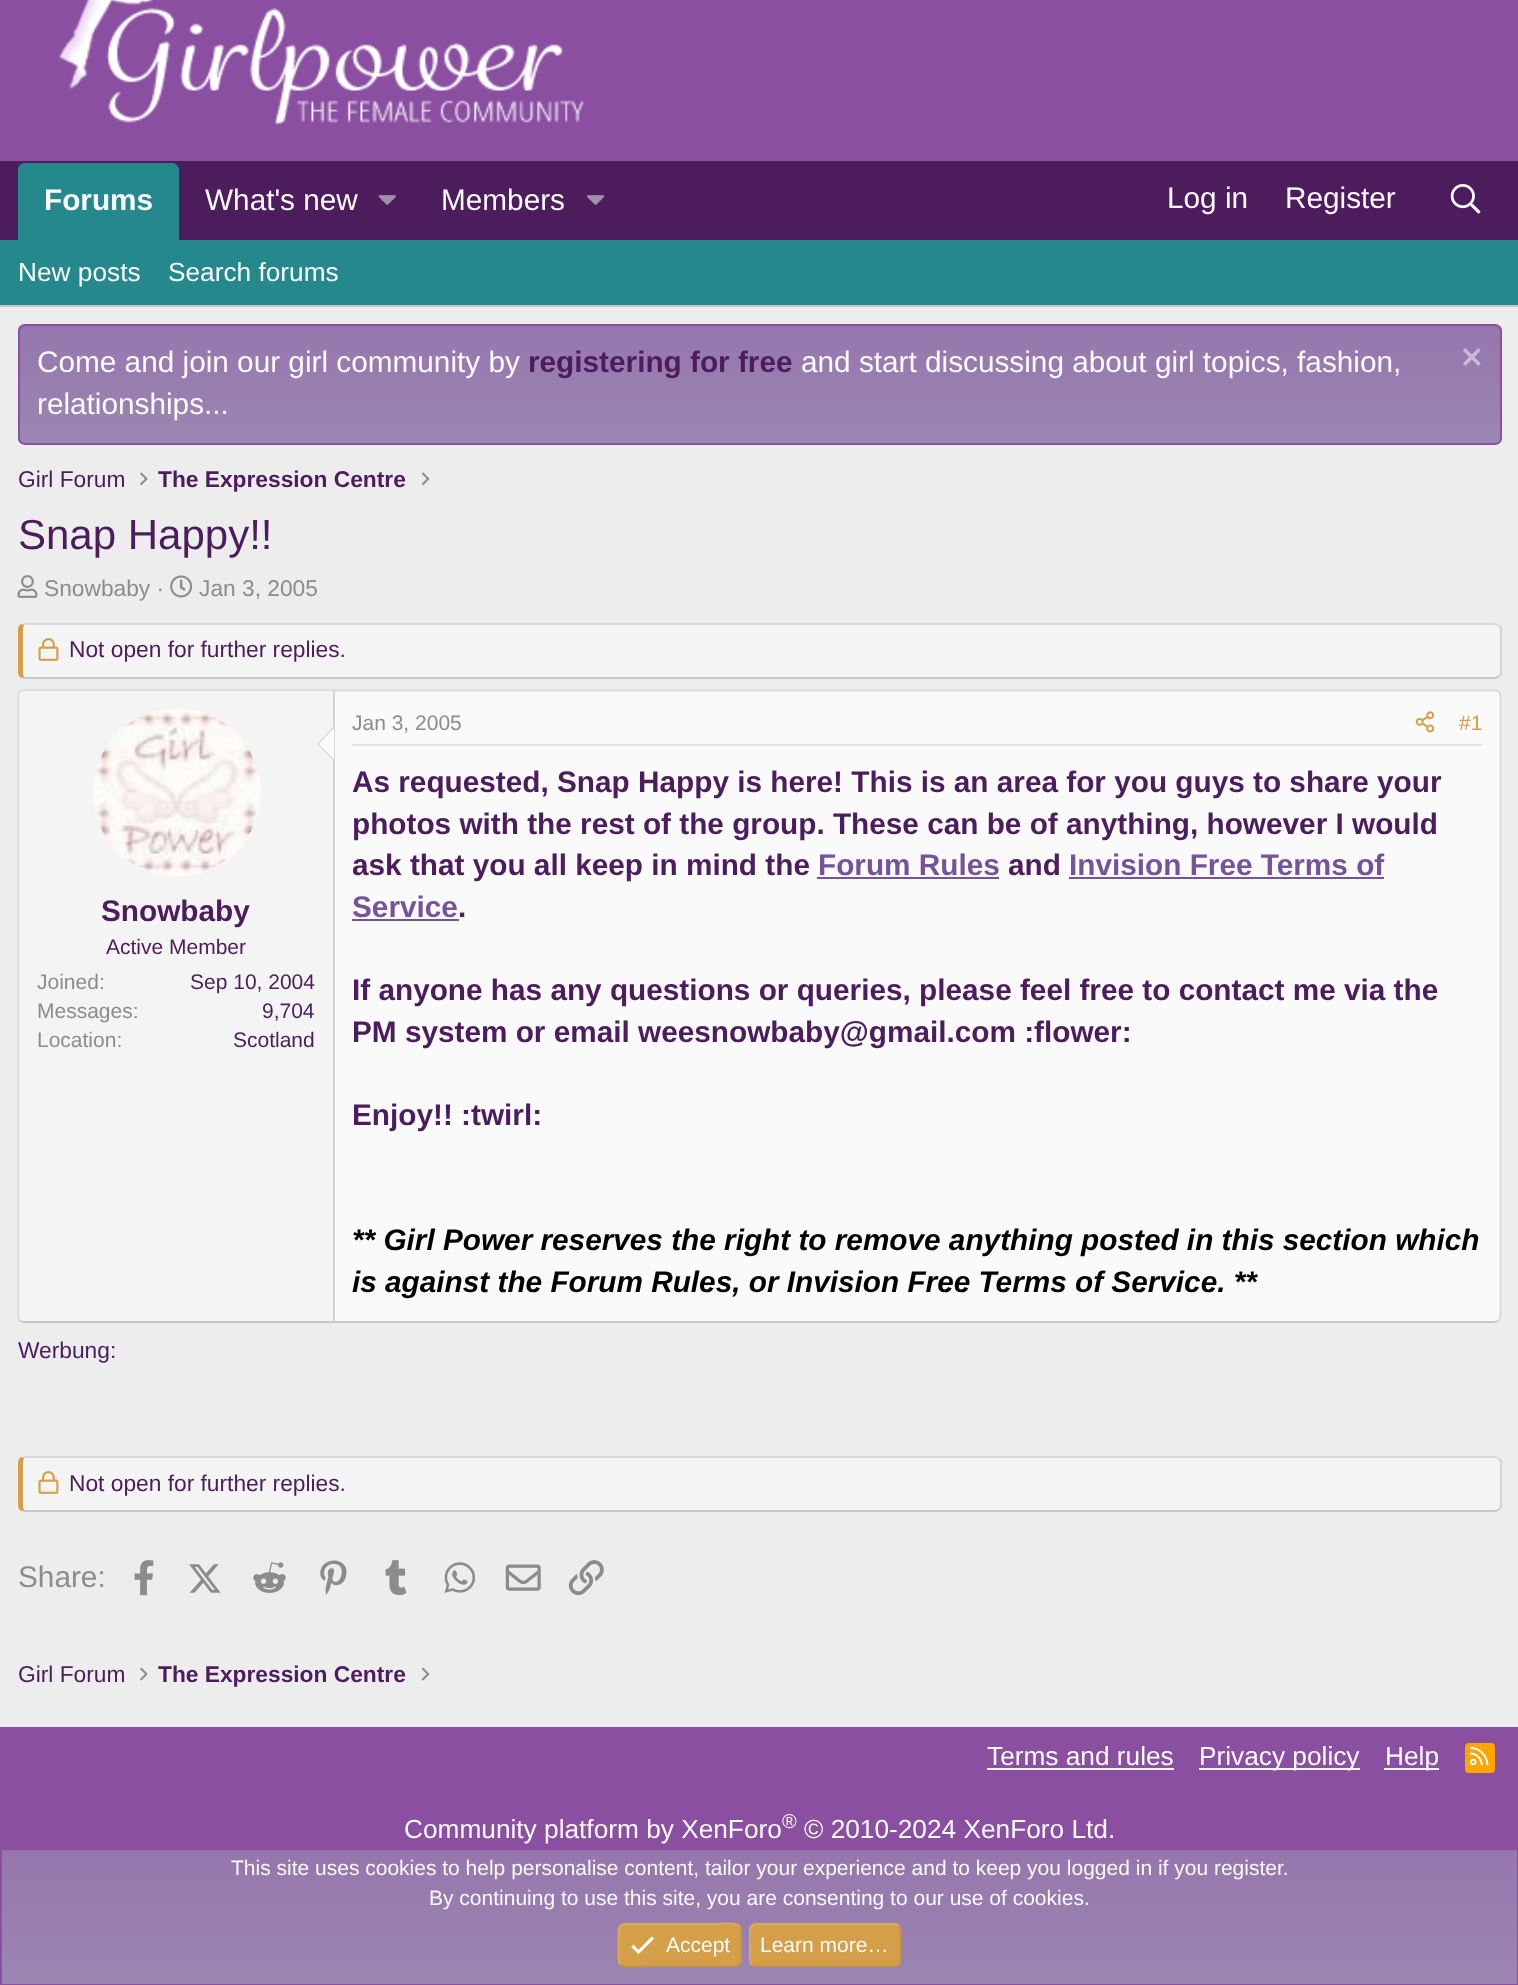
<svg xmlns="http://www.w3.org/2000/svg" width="1518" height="1985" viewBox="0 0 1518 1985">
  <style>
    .t1 { font: bold 29.75px Liberation Sans; fill: #fafafa; }
    .t2 { font: 29.75px Liberation Sans; fill: #fafafa; }
    .t3 { font: 26.25px Liberation Sans; fill: #fafafa; }
    .t4 { font: bold 29.75px Liberation Sans; fill: #4c1c5d; }
    .t5 { font: 22.75px Liberation Sans; fill: #4c1c5d; }
    .t6 { font: bold 22.75px Liberation Sans; fill: #4c1c5d; }
    .t7 { font: 42px Liberation Sans; fill: #4c1c5d; }
    .t8 { font: 22.75px Liberation Sans; fill: #8c8c8c; }
    .t9 { font: 21px Liberation Sans; fill: #4c1c5d; }
    .t10 { font: 21px Liberation Sans; fill: #8c8c8c; }
    .t11 { font: 21px Liberation Sans; fill: #d59f49; }
    .t12 { font: bold 29.75px Liberation Sans; fill: #75539b; }
    .t13 { font: italic bold 29.75px Liberation Sans; fill: #000; }
    .t14 { font: 29.75px Liberation Sans; fill: #8c8c8c; }
    .t15 { font: 20px Liberation Sans; fill: #fafafa; }
    .t16 { font: 21px Liberation Sans; fill: #fafafa; }
  </style>
  <defs>
    <clipPath id="clip1"><rect x="18" y="324" width="1484" height="121" rx="7"/></clipPath>
    <linearGradient id="g1" gradientUnits="userSpaceOnUse" x1="760" y1="443" x2="760" y2="326"><stop offset="0" stop-color="#9b86b2"/><stop offset="1" stop-color="#9676ad"/></linearGradient>
    <clipPath id="clip2"><rect x="158" y="462" width="248" height="35"/></clipPath>
    <clipPath id="clip3"><rect x="158" y="1657" width="248" height="35"/></clipPath>
    <linearGradient id="g2" gradientUnits="userSpaceOnUse" x1="760" y1="1985" x2="760" y2="1850"><stop offset="0" stop-color="#9b86b2"/><stop offset="1" stop-color="#9676ad"/></linearGradient>
  </defs>
  <rect width="100%" height="100%" fill="#ededed"/>
  <rect x="0" y="0" width="1518" height="161" fill="#8b4fa1"/>
  <image x="59" y="0" width="526" height="125" href="images/1.png"/>
  <rect x="0" y="161" width="1518" height="79" fill="#4c1c5d"/>
  <path d="M25 163H172C176 163 179 166 179 170V240H18V170C18 166 21 163 25 163Z" fill="#24888d"/>
  <text x="44" y="210" class="t1">Forums</text>
  <text x="205" y="210" class="t2">What's new</text>
  <image x="378" y="195" width="18" height="10" href="images/2.png"/>
  <text x="441" y="210" class="t2">Members</text>
  <image x="587" y="195" width="18" height="10" href="images/3.png"/>
  <text x="1167" y="208" class="t2">Log in</text>
  <text x="1285" y="208" class="t2">Register</text>
  <image x="1450" y="184" width="31" height="30" href="images/4.png"/>
  <rect x="0" y="240" width="1518" height="65" fill="#24888d"/>
  <rect x="0" y="305" width="1518" height="2" fill="#c7c7c7"/>
  <text x="18" y="281" class="t3">New posts</text>
  <text x="168" y="281" class="t3">Search forums</text>
  <g clip-path="url(#clip1)">
    <rect x="18" y="326" width="1484" height="117" fill="url(#g1)"/>
  </g>
  <rect x="19" y="325" width="1482" height="119" rx="6" fill="none" stroke="#8b4fa1" stroke-width="2"/>
  <text x="37" y="372" class="t2">Come and join our girl community by</text>
  <text x="528" y="372" class="t4">registering for free</text>
  <text x="801" y="372" class="t2">and start discussing about girl topics, fashion,</text>
  <image x="1463" y="348" width="18" height="18" href="images/5.png"/>
  <text x="37" y="414" class="t2">relationships...</text>
  <text x="18" y="487" class="t5">Girl Forum</text>
  <image x="140" y="472" width="8" height="14" href="images/6.png"/>
  <g clip-path="url(#clip2)">
    <text x="158" y="487" class="t6">The Expression Centre</text>
  </g>
  <image x="421" y="472" width="9" height="14" href="images/7.png"/>
  <text x="18" y="549" class="t7">Snap Happy!!</text>
  <image x="17" y="575" width="21" height="23" href="images/8.png"/>
  <text x="44" y="596" class="t8">Snowbaby ·</text>
  <image x="170" y="575" width="23" height="23" href="images/9.png"/>
  <text x="199" y="596" class="t8">Jan 3, 2005</text>
  <path d="M24 625H1494C1497 625 1500 627 1500 630V672C1500 675 1497 677 1494 677H24C24 677 23 675 23 672V630C23 627 24 625 24 625Z" fill="#f4f4f4"/>
  <path d="M24 623L21 624L24 625H1494C1496 625 1497 626 1498 626L1500 625C1498 624 1496 623 1494 623Z" fill="#dbdbdb"/>
  <path d="M1502 674L1500 677L1498 676C1499 675 1500 674 1500 672V630C1500 628 1499 627 1498 626L1500 625L1502 628Z" fill="#d4d4d4"/>
  <path d="M24 679H1494C1496 679 1498 678 1500 677L1498 676C1497 676 1496 677 1494 677H24L21 678Z" fill="#c7c7c7"/>
  <path d="M21 624C19 625 18 627 18 630V672C18 675 19 677 21 678L24 677C24 676 23 675 23 672V630C23 627 24 626 24 625Z" fill="#d59f49"/>
  <image x="38" y="638" width="21" height="23" href="images/10.png"/>
  <text x="69" y="657" class="t5">Not open for further replies.</text>
  <rect x="18" y="690" width="1484" height="633" rx="7" fill="#fafafa"/>
  <path d="M20 692C21.5 691 23 690.5 24.5 690.5H1494.5C1496 690.5 1497.5 691 1499 692" fill="none" stroke="#dbdbdb" stroke-width="1.8"/>
  <path d="M1499 692C1500 693.5 1500.5 695 1500.5 696.5V1316C1500.5 1317.5 1500 1319 1499 1320.5" fill="none" stroke="#d4d4d4" stroke-width="1.8"/>
  <path d="M1499 1320.5C1497.5 1321.5 1496 1322 1494.5 1322H24.5C23 1322 21.5 1321.5 20 1320.5" fill="none" stroke="#c7c7c7" stroke-width="1.8"/>
  <path d="M20 1320.5C19 1319 18.5 1317.5 18.5 1316V696.5C18.5 695 19 693.5 20 692" fill="none" stroke="#d4d4d4" stroke-width="1.8"/>
  <path d="M24 691H334V1321H24C21 1321 19 1319 19 1316V696C19 693 21 691 24 691Z" fill="#f4f4f4"/>
  <rect x="333" y="691" width="2" height="630" fill="#d4d4d4"/>
  <circle cx="177" cy="793" r="84" fill="#fafafa"/>
  <image x="93" y="708" width="167" height="168" href="images/11.png"/>
  <path d="M334 726V761L317 744Z" fill="#d4d4d4"/>
  <path d="M334 728V759.5L318.5 744Z" fill="#fafafa"/>
  <text x="101" y="921" class="t4">Snowbaby</text>
  <text x="106" y="954" class="t9">Active Member</text>
  <text x="37" y="989" class="t10">Joined:</text>
  <text x="190" y="989" class="t9">Sep 10, 2004</text>
  <text x="37" y="1018" class="t10">Messages:</text>
  <text x="262" y="1018" class="t9">9,704</text>
  <text x="37" y="1047" class="t10">Location:</text>
  <text x="233" y="1047" class="t9">Scotland</text>
  <rect x="352" y="744" width="1130" height="2" fill="#e3e3e3"/>
  <text x="352" y="730" class="t10">Jan 3, 2005</text>
  <image x="1415" y="711" width="20" height="22" href="images/12.png"/>
  <text x="1459" y="730" class="t11">#1</text>
  <text x="352" y="792" class="t4">As requested, Snap Happy is here! This is an area for you guys to share your</text>
  <text x="352" y="834" class="t4">photos with the rest of the group. These can be of anything, however I would</text>
  <text x="352" y="875" class="t4">ask that you all keep in mind the</text>
  <text x="818" y="875" class="t12">Forum Rules</text>
  <rect x="817" y="877" width="182" height="2" fill="#75539b"/>
  <text x="1008" y="875" class="t4">and</text>
  <text x="1069" y="875" class="t12">Invision Free Terms of</text>
  <rect x="1069" y="877" width="315" height="2" fill="#75539b"/>
  <text x="352" y="917" class="t12">Service</text>
  <text x="458" y="917" class="t4">.</text>
  <rect x="352" y="919" width="107" height="2" fill="#75539b"/>
  <text x="352" y="1000" class="t4">If anyone has any questions or queries, please feel free to contact me via the</text>
  <text x="352" y="1042" class="t4">PM system or email weesnowbaby@gmail.com :flower:</text>
  <text x="352" y="1125" class="t4">Enjoy!! :twirl:</text>
  <text x="352" y="1250" class="t13">** Girl Power reserves the right to remove anything posted in this section which</text>
  <text x="352" y="1292" class="t13">is against the Forum Rules, or Invision Free Terms of Service. **</text>
  <text x="18" y="1358" class="t5">Werbung:</text>
  <path d="M24 1458H1494C1497 1458 1500 1460 1500 1463V1505C1500 1508 1497 1510 1494 1510H24C24 1510 23 1508 23 1505V1463C23 1460 24 1458 24 1458Z" fill="#f4f4f4"/>
  <path d="M24 1456L21 1457L24 1458H1494C1496 1458 1497 1458 1498 1459L1500 1458C1498 1457 1496 1456 1494 1456Z" fill="#dbdbdb"/>
  <path d="M1502 1507L1500 1510L1498 1509C1499 1508 1500 1506 1500 1505V1463C1500 1462 1499 1460 1498 1459L1500 1458L1502 1461Z" fill="#d4d4d4"/>
  <path d="M24 1512H1494C1496 1512 1498 1511 1500 1510L1498 1509C1497 1510 1496 1510 1494 1510H24L21 1511Z" fill="#c7c7c7"/>
  <path d="M21 1457C19 1458 18 1460 18 1463V1505C18 1508 19 1510 21 1511L24 1510C24 1509 23 1508 23 1505V1463C23 1460 24 1459 24 1458Z" fill="#d59f49"/>
  <image x="38" y="1471" width="21" height="23" href="images/10.png"/>
  <text x="69" y="1491" class="t5">Not open for further replies.</text>
  <text x="18" y="1587" class="t14">Share:</text>
  <image x="134" y="1560" width="20" height="36" href="images/13.png"/>
  <image x="189" y="1564" width="32" height="29" href="images/14.png"/>
  <image x="253" y="1562" width="33" height="31" href="images/15.png"/>
  <image x="320" y="1560" width="27" height="35" href="images/16.png"/>
  <image x="385" y="1560" width="22" height="36" href="images/17.png"/>
  <image x="444" y="1562" width="32" height="31" href="images/18.png"/>
  <image x="505" y="1564" width="36" height="27" href="images/19.png"/>
  <image x="568" y="1560" width="36" height="36" href="images/20.png"/>
  <text x="18" y="1682" class="t5">Girl Forum</text>
  <image x="140" y="1667" width="8" height="14" href="images/21.png"/>
  <g clip-path="url(#clip3)">
    <text x="158" y="1682" class="t6">The Expression Centre</text>
  </g>
  <image x="421" y="1667" width="9" height="14" href="images/22.png"/>
  <rect x="0" y="1727" width="1518" height="121" fill="#8b4fa1"/>
  <text x="987" y="1765" class="t3">Terms and rules</text>
  <rect x="987" y="1768" width="187" height="2" fill="#fafafa"/>
  <rect x="1199" y="1768" width="161" height="2" fill="#fafafa"/>
  <text x="1199" y="1765" class="t3">Privacy policy</text>
  <rect x="1384" y="1768" width="55" height="2" fill="#fafafa"/>
  <text x="1385" y="1765" class="t3">Help</text>
  <rect x="1465" y="1743" width="30" height="30" rx="4" fill="#ffa500"/>
  <image x="1470" y="1746" width="19" height="20" href="images/23.png"/>
  <text x="404" y="1838" class="t3">Community platform by XenForo</text>
  <text x="782" y="1828" class="t15">®</text>
  <text x="804" y="1838" class="t3">© 2010-2024 XenForo Ltd.</text>
  <rect x="2" y="1850" width="1515" height="134" fill="url(#g2)"/>
  <rect x="1" y="1849" width="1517" height="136" fill="none" stroke="#8b4fa1" stroke-width="2"/>
  <text x="231" y="1875" class="t16">This site uses cookies to help personalise content, tailor your experience and to keep you logged in if you register.</text>
  <text x="429" y="1905" class="t16">By continuing to use this site, you are consenting to our use of cookies.</text>
  <rect x="618" y="1923" width="124" height="44" rx="7" fill="#d59f49"/>
  <path d="M739.5 1926C742 1928.5 741 1932 741 1935V1945C741 1970 743 1966 716.5 1966H643C641.5 1966 625 1969 620.5 1964.5" fill="none" stroke="#d09434" stroke-width="1.8"/>
  <path d="M620.5 1964.5C618 1962 618.5 1958 618.5 1955V1945C618.5 1920.5 616.5 1924 643 1924H716.5C718.5 1924 735 1921.5 739.5 1926" fill="none" stroke="#daaa5e" stroke-width="1.8"/>
  <image x="631" y="1936" width="23" height="18" href="images/24.png"/>
  <text x="666" y="1952" class="t16">Accept</text>
  <rect x="749" y="1923" width="152" height="44" rx="7" fill="#d59f49"/>
  <path d="M898.5 1926C899.5 1927 900.5 1928.5 900.5 1930V1960C900.5 1961.5 899.5 1963 898.5 1964.5C897.5 1965.5 896 1966 894 1966H756C754.5 1966 753 1965.5 751.5 1964.5" fill="none" stroke="#d09434" stroke-width="1.8"/>
  <path d="M751.5 1964.5C750.5 1963 750 1961.5 750 1960V1930C750 1928.5 750.5 1927 751.5 1926C753 1925 754.5 1924 756 1924H894C896 1924 897.5 1925 898.5 1926" fill="none" stroke="#daaa5e" stroke-width="1.8"/>
  <text x="760" y="1952" class="t16">Learn more…</text>
</svg>
